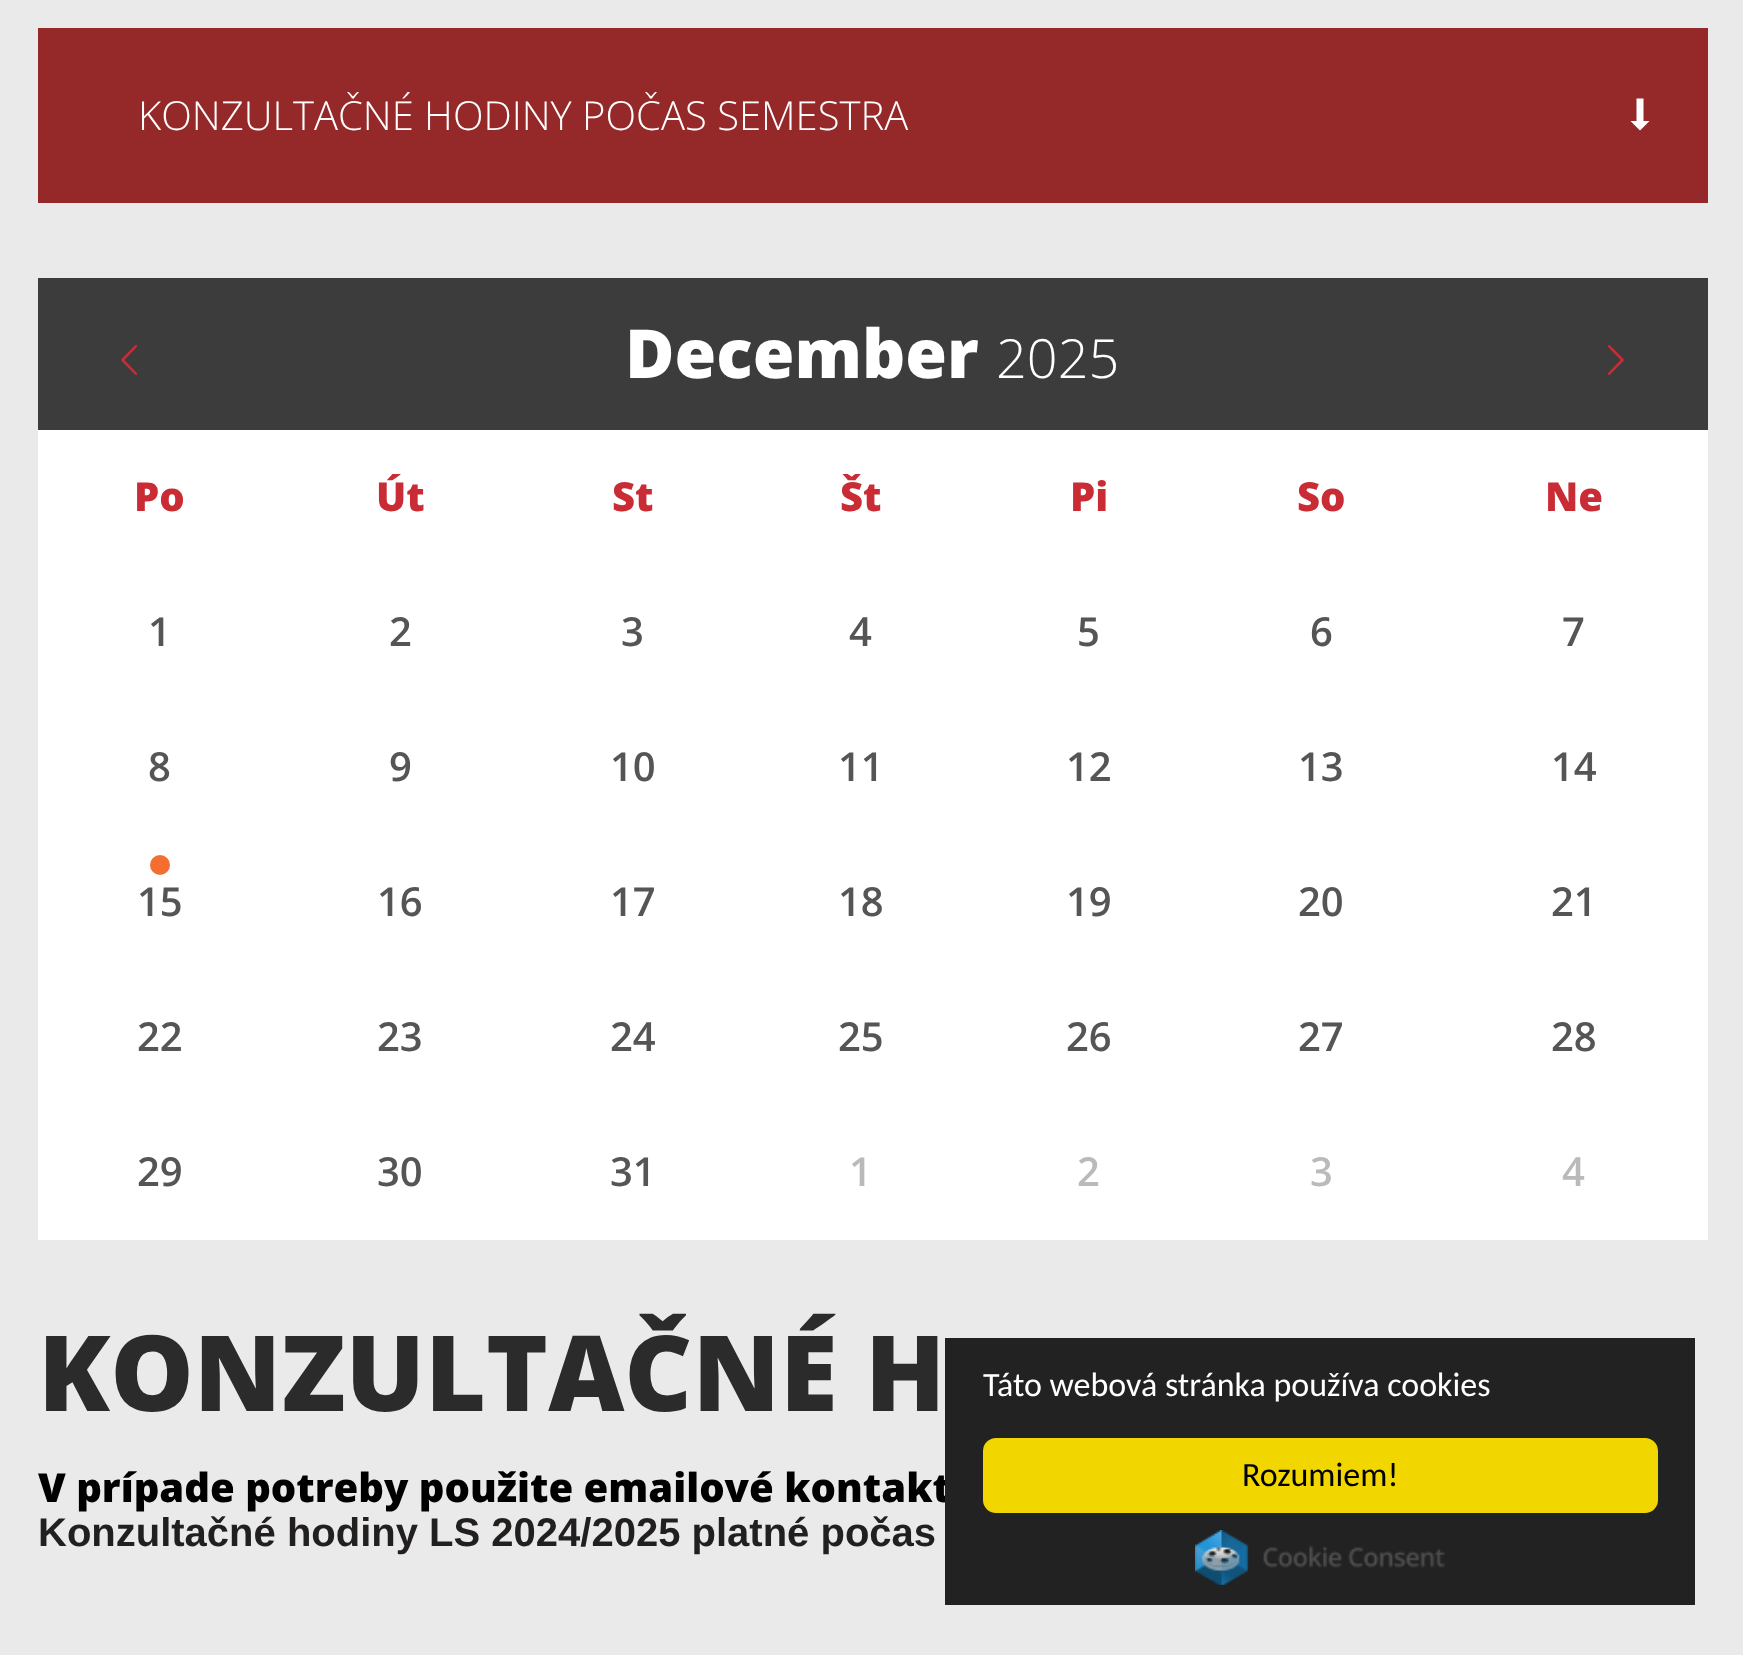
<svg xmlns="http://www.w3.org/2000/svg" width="1743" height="1655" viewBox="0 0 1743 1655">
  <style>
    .t1 { font: 300 40px Open Sans; fill: #fff; }
    .t2 { font: 800 67.5px Open Sans; fill: #fff; }
    .t3 { font: 300 54px Open Sans; fill: #fff; }
    .t4 { font: 800 40px Open Sans; fill: #c92c35; }
    .t5 { font: 600 40px Open Sans; fill: #555; }
    .t6 { font: 600 40px Open Sans; fill: #bababa; }
    .t7 { font: 800 105px Open Sans; fill: #2b2b2c; }
    .t8 { font: 800 40px Open Sans; fill: #000; }
    .t9 { font: bold 40px Liberation Sans; fill: #221f1f; }
    .t10 { font: 34px Carlito; fill: #fff; }
    .t11 { font: 34px Carlito; fill: #000; }
  </style>
  <rect width="100%" height="100%" fill="#eaeaea"/>
  <rect x="38" y="28" width="1670" height="175" fill="#952828"/>
  <text x="138" y="130" class="t1">KONZULTAČNÉ HODINY POČAS SEMESTRA</text>
  <path d="M1640 130.5L1630.5 121H1636.5V98.5H1643.5V121H1649.5Z" fill="#fff"/>
  <rect x="38" y="278" width="1670" height="152" fill="#3c3c3d"/>
  <image x="121" y="345" width="17" height="30" href="images/1.png"/>
  <text x="625" y="378" class="t2">December</text>
  <text x="996" y="378" class="t3">2025</text>
  <image x="1607" y="345" width="17" height="30" href="images/2.png"/>
  <rect x="38" y="430" width="1670" height="810" fill="#fff"/>
  <text x="134" y="511" class="t4">Po</text>
  <text x="376" y="511" class="t4">Út</text>
  <text x="612" y="511" class="t4">St</text>
  <text x="840" y="511" class="t4">Št</text>
  <text x="1070" y="511" class="t4">Pi</text>
  <text x="1297" y="511" class="t4">So</text>
  <text x="1545" y="511" class="t4">Ne</text>
  <text x="148" y="646" class="t5">1</text>
  <text x="389" y="646" class="t5">2</text>
  <text x="621" y="646" class="t5">3</text>
  <text x="849" y="646" class="t5">4</text>
  <text x="1077" y="646" class="t5">5</text>
  <text x="1310" y="646" class="t5">6</text>
  <text x="1562" y="646" class="t5">7</text>
  <text x="148" y="781" class="t5">8</text>
  <text x="389" y="781" class="t5">9</text>
  <text x="610" y="781" class="t5">10</text>
  <text x="838" y="781" class="t5">11</text>
  <text x="1066" y="781" class="t5">12</text>
  <text x="1298" y="781" class="t5">13</text>
  <text x="1551" y="781" class="t5">14</text>
  <circle cx="160" cy="865" r="10" fill="#f36e30"/>
  <text x="137" y="916" class="t5">15</text>
  <text x="377" y="916" class="t5">16</text>
  <text x="610" y="916" class="t5">17</text>
  <text x="838" y="916" class="t5">18</text>
  <text x="1066" y="916" class="t5">19</text>
  <text x="1298" y="916" class="t5">20</text>
  <text x="1551" y="916" class="t5">21</text>
  <text x="137" y="1051" class="t5">22</text>
  <text x="377" y="1051" class="t5">23</text>
  <text x="610" y="1051" class="t5">24</text>
  <text x="838" y="1051" class="t5">25</text>
  <text x="1066" y="1051" class="t5">26</text>
  <text x="1298" y="1051" class="t5">27</text>
  <text x="1551" y="1051" class="t5">28</text>
  <text x="137" y="1186" class="t5">29</text>
  <text x="377" y="1186" class="t5">30</text>
  <text x="610" y="1186" class="t5">31</text>
  <text x="849" y="1186" class="t6">1</text>
  <text x="1077" y="1186" class="t6">2</text>
  <text x="1310" y="1186" class="t6">3</text>
  <text x="1562" y="1186" class="t6">4</text>
  <text x="38" y="1411" class="t7">KONZULTAČNÉ H</text>
  <text x="38" y="1502" class="t8">V prípade potreby použite emailové kontakt</text>
  <text x="38" y="1546" class="t9">Konzultačné hodiny LS 2024/2025 platné počas</text>
  <rect x="945" y="1338" width="750" height="267" fill="#222"/>
  <text x="983" y="1396" class="t10">Táto webová stránka používa cookies</text>
  <rect x="983" y="1438" width="675" height="75" rx="13" fill="#f1d600"/>
  <text x="1242" y="1486" class="t11">Rozumiem!</text>
  <image x="1195" y="1530" width="250" height="55" href="images/3.png"/>
</svg>
